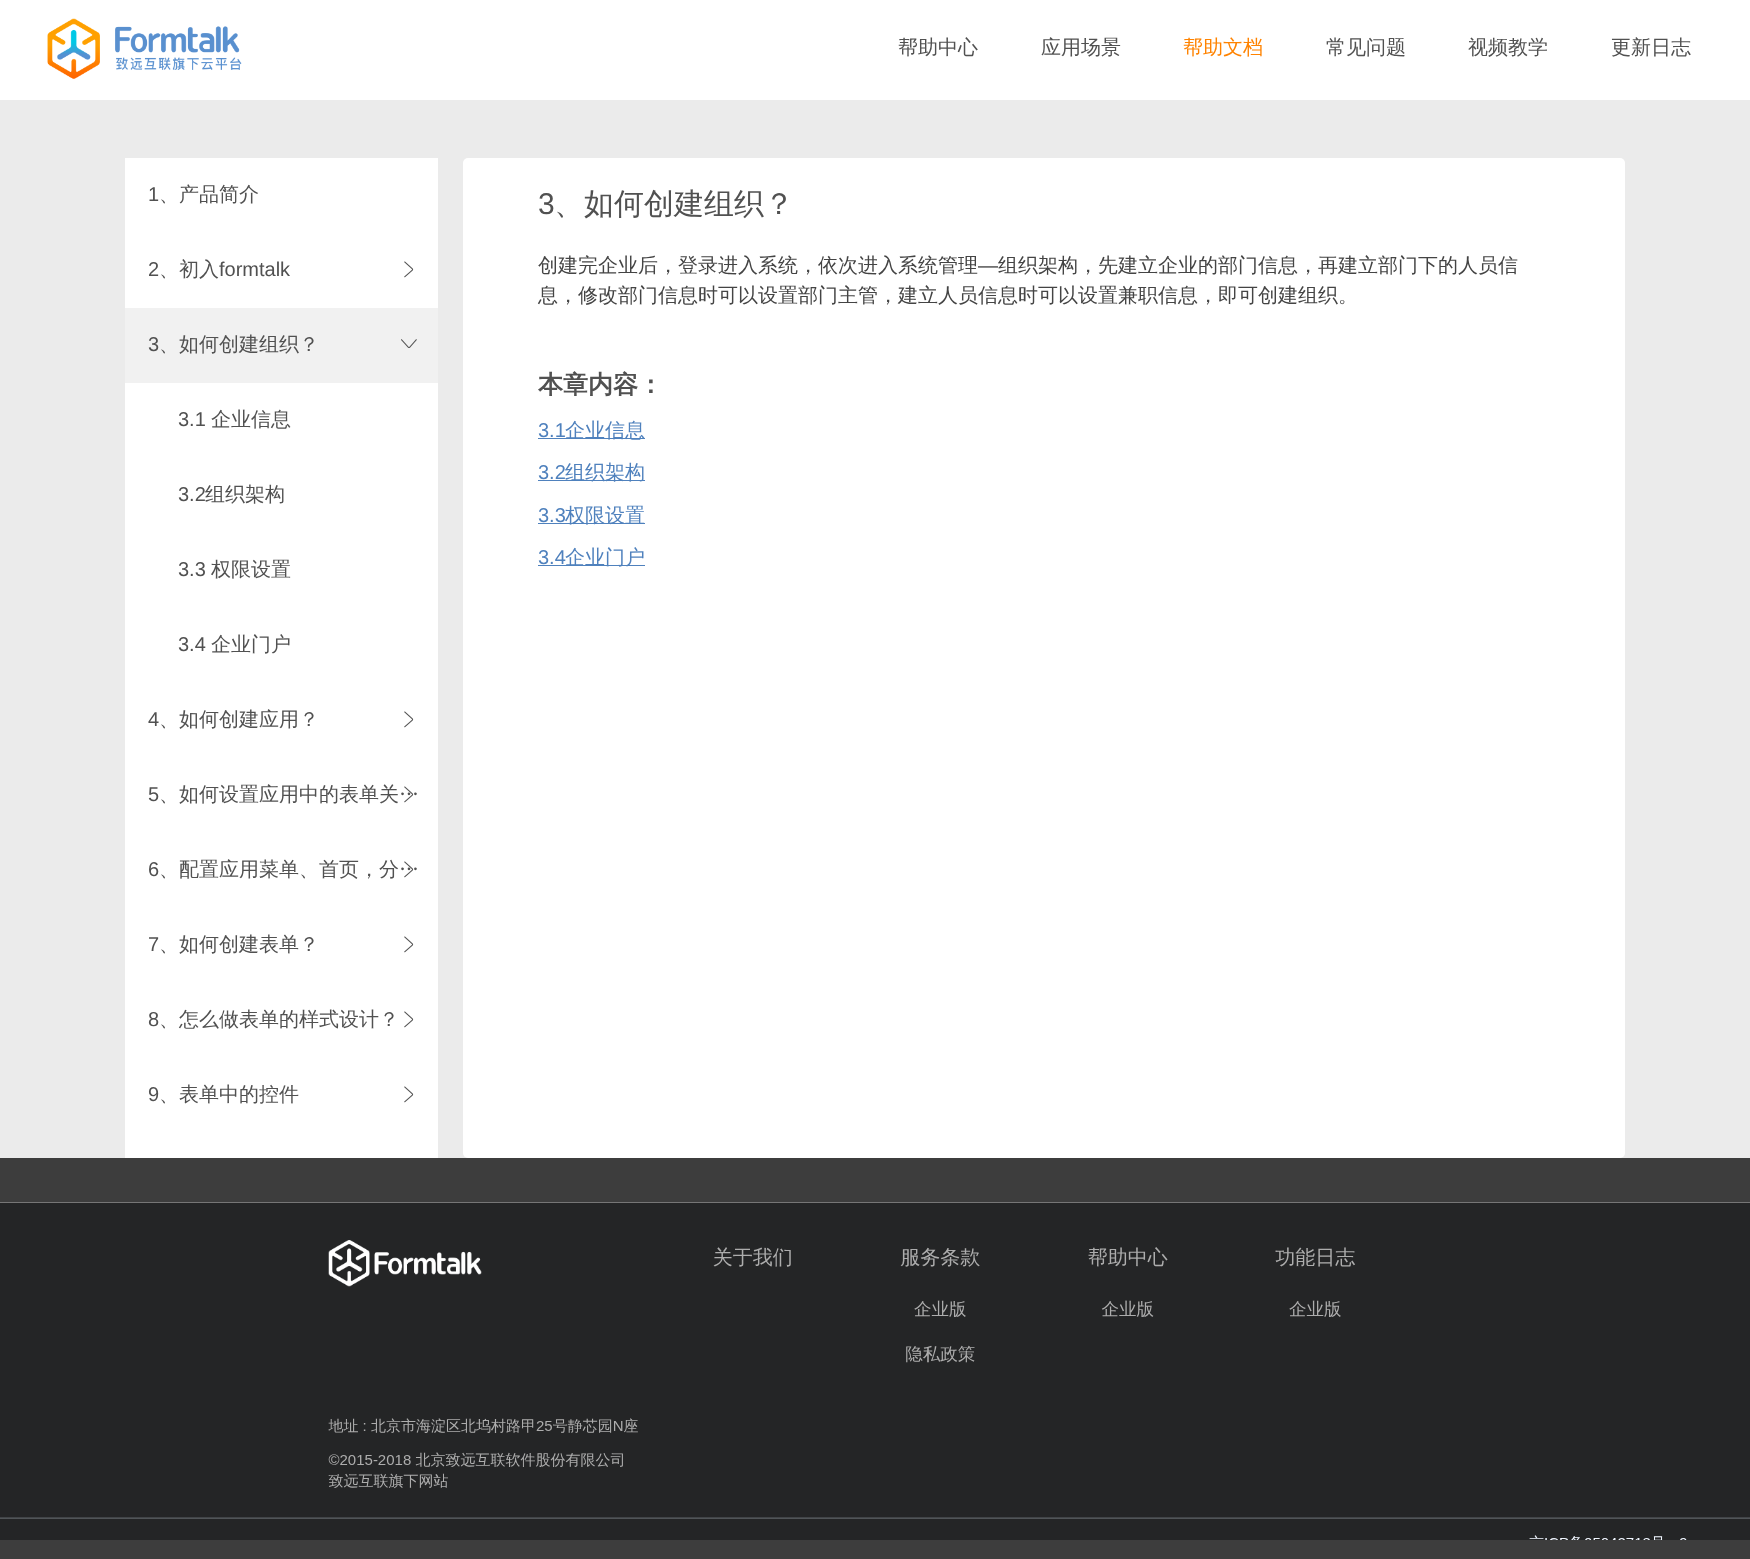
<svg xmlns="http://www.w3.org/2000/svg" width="1750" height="1559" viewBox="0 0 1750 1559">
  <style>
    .t1 { font: 500 20px WenQuanYi Zen Hei; fill: #515151; }
    .t2 { font: 500 20px WenQuanYi Zen Hei; fill: #ff8300; }
    .t3 { font: 20px Liberation Sans; fill: #515151; }
    .t4 { font: 30px Liberation Sans; fill: #515151; }
    .t5 { font: 500 30px WenQuanYi Zen Hei; fill: #515151; }
    .t6 { font: 500 20px WenQuanYi Zen Hei; fill: #444; }
    .t7 { font: 20px Liberation Sans; fill: #444; }
    .t8 { font: bold 25px WenQuanYi Zen Hei; fill: #515151; }
    .t9 { font: 20px Liberation Sans; fill: #4f81bd; }
    .t10 { font: 500 20px WenQuanYi Zen Hei; fill: #4f81bd; }
  </style>
  <rect width="100%" height="100%" fill="#ebebeb"/>
  <rect x="0" y="0" width="1750" height="100" fill="#fff"/>
  <image x="47" y="18" width="195" height="61" href="images/1.png"/>
  <text x="898" y="54" class="t1">帮助中心</text>
  <text x="1041" y="54" class="t1">应用场景</text>
  <text x="1183" y="54" class="t2">帮助文档</text>
  <text x="1326" y="54" class="t1">常见问题</text>
  <text x="1468" y="54" class="t1">视频教学</text>
  <text x="1611" y="54" class="t1">更新日志</text>
  <rect x="125" y="158" width="313" height="1000" fill="#fff"/>
  <text x="148" y="201" class="t3">1</text>
  <text x="159" y="201" class="t1">、产品简介</text>
  <text x="148" y="276" class="t3">2</text>
  <text x="159" y="276" class="t1">、初入</text>
  <text x="219" y="276" class="t3">formtalk</text>
  <image x="404" y="261" width="10" height="17" href="images/2.png"/>
  <rect x="125" y="308" width="313" height="75" fill="#f1f1f1"/>
  <text x="148" y="351" class="t3">3</text>
  <text x="159" y="351" class="t1">、如何创建组织？</text>
  <image x="401" y="339" width="16" height="9" href="images/3.png"/>
  <text x="178" y="426" class="t3">3.1</text>
  <text x="211" y="426" class="t1">企业信息</text>
  <text x="178" y="501" class="t3">3.2</text>
  <text x="205" y="501" class="t1">组织架构</text>
  <text x="178" y="576" class="t3">3.3</text>
  <text x="211" y="576" class="t1">权限设置</text>
  <text x="178" y="651" class="t3">3.4</text>
  <text x="211" y="651" class="t1">企业门户</text>
  <text x="148" y="726" class="t3">4</text>
  <text x="159" y="726" class="t1">、如何创建应用？</text>
  <image x="404" y="711" width="10" height="17" href="images/2.png"/>
  <text x="159" y="801" class="t1">、如何设置应用中的表单关…</text>
  <text x="148" y="801" class="t3">5</text>
  <image x="404" y="786" width="10" height="17" href="images/4.png"/>
  <text x="159" y="876" class="t1">、配置应用菜单、首页，分…</text>
  <text x="148" y="876" class="t3">6</text>
  <image x="404" y="861" width="10" height="17" href="images/4.png"/>
  <text x="148" y="951" class="t3">7</text>
  <text x="159" y="951" class="t1">、如何创建表单？</text>
  <image x="404" y="936" width="10" height="17" href="images/2.png"/>
  <text x="148" y="1026" class="t3">8</text>
  <text x="159" y="1026" class="t1">、怎么做表单的样式设计？</text>
  <image x="404" y="1011" width="10" height="17" href="images/2.png"/>
  <text x="148" y="1101" class="t3">9</text>
  <text x="159" y="1101" class="t1">、表单中的控件</text>
  <image x="404" y="1086" width="10" height="17" href="images/2.png"/>
  <rect x="463" y="158" width="1162" height="1000" rx="5" fill="#fff"/>
  <text x="538" y="214" class="t4">3</text>
  <text x="554" y="214" class="t5">、如何创建组织？</text>
  <text x="538" y="272" class="t6">创建完企业后，登录进入系统，依次进入系统管理</text>
  <text x="978" y="272" class="t7">—</text>
  <text x="998" y="272" class="t6">组织架构，先建立企业的部门信息，再建立部门下的人员信</text>
  <text x="538" y="302" class="t6">息，修改部门信息时可以设置部门主管，建立人员信息时可以设置兼职信息，即可创建组织。</text>
  <text x="538" y="393" class="t8">本章内容：</text>
  <text x="538" y="437" class="t9">3.1</text>
  <rect x="538" y="438" width="107" height="1" fill="#4f81bd"/>
  <text x="565" y="437" class="t10">企业信息</text>
  <text x="538" y="479" class="t9">3.2</text>
  <rect x="538" y="480" width="107" height="1" fill="#4f81bd"/>
  <text x="565" y="479" class="t10">组织架构</text>
  <text x="538" y="522" class="t9">3.3</text>
  <rect x="538" y="523" width="107" height="1" fill="#4f81bd"/>
  <text x="565" y="522" class="t10">权限设置</text>
  <text x="538" y="564" class="t9">3.4</text>
  <rect x="538" y="565" width="107" height="1" fill="#4f81bd"/>
  <text x="565" y="564" class="t10">企业门户</text>
  <rect x="0" y="1158" width="1750" height="401" fill="#3d3d3d"/>
  <image x="0" y="1202" width="1750" height="338" href="images/5.png"/>
</svg>
